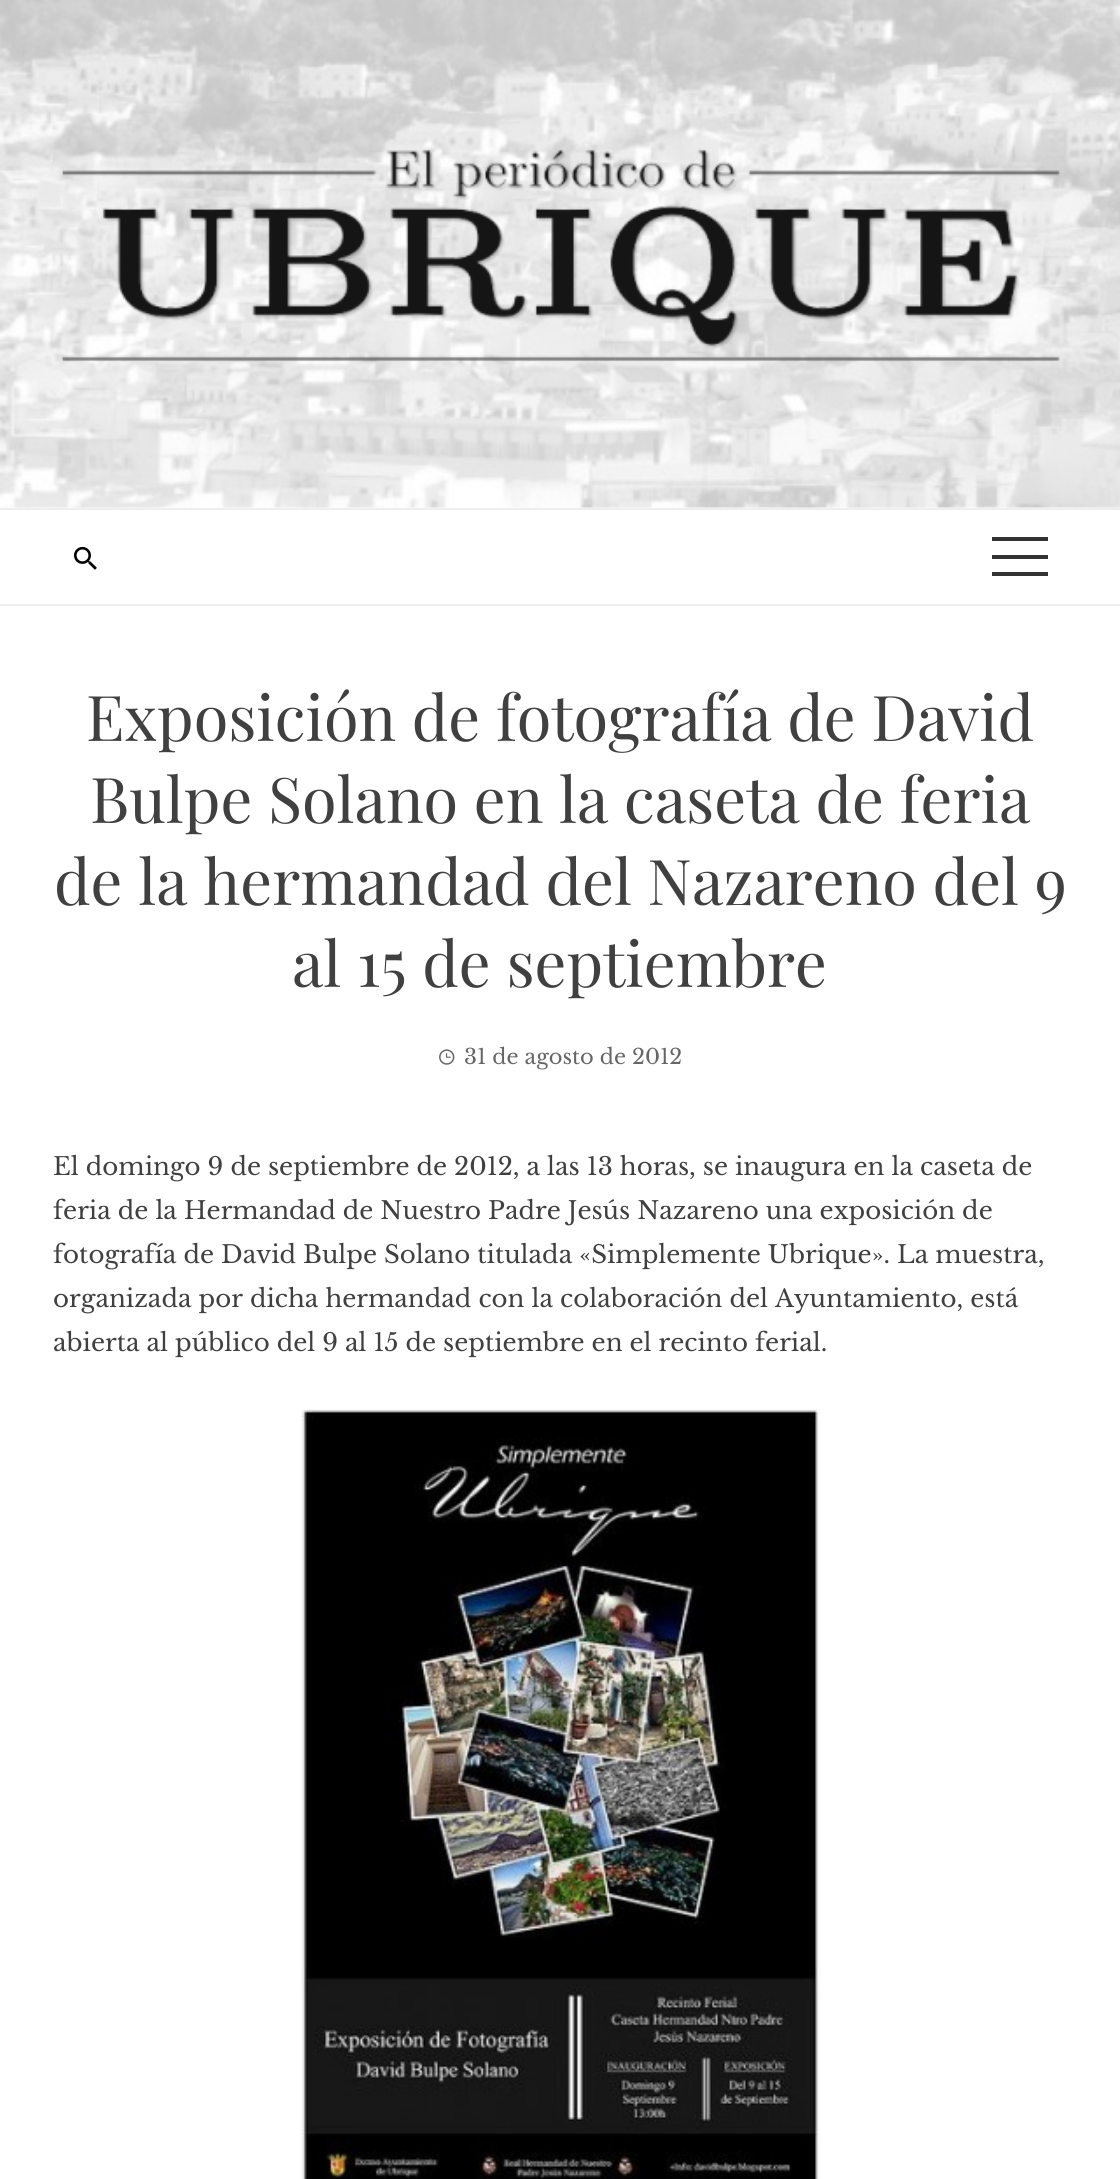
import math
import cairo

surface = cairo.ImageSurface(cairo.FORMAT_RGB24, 1120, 2179)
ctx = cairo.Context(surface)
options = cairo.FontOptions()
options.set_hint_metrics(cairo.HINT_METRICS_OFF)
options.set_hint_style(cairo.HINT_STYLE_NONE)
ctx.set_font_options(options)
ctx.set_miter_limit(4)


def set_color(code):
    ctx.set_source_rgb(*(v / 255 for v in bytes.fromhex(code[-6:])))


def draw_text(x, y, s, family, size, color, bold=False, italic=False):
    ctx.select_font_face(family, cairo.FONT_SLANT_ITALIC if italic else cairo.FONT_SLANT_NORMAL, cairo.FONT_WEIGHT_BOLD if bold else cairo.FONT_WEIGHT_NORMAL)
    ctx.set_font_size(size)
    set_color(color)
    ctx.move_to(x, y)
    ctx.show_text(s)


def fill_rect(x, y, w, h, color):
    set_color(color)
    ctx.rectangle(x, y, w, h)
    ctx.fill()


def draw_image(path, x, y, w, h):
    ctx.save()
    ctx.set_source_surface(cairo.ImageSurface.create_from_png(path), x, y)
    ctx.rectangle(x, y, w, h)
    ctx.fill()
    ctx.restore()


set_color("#ffffff")
ctx.paint()
draw_image("assets/img1.png", 0, 0, 1120, 508)
draw_image("assets/img2.png", 62, 149, 998, 213)
fill_rect(0, 508, 1120, 2, "#eeeeee")
fill_rect(0, 604, 1120, 2, "#eeeeee")
draw_image("assets/img3.png", 73, 546, 24, 24)
fill_rect(992, 537, 56, 4, "#333333")
fill_rect(992, 572, 56, 4, "#333333")
fill_rect(992, 555, 56, 4, "#333333")
draw_text(86, 741, "Exposición de fotografía de David", "Playfair Display", 63, "#404040")
draw_text(90, 823, "Bulpe Solano en la caseta de feria", "Playfair Display", 63, "#404040")
draw_text(54, 905, "de la hermandad del Nazareno del 9", "Playfair Display", 63, "#404040")
draw_text(292, 987, "al 15 de septiembre", "Playfair Display", 63, "#404040")
draw_image("assets/img4.png", 439, 1049, 16, 16)
draw_text(464, 1064, "31 de agosto de 2012", "Libre Baskerville", 21, "#666666")
draw_text(53, 1175, "El domingo 9 de septiembre de 2012, a las 13 horas, se inaugura en la caseta de", "Libre Baskerville", 24.5, "#404040")
draw_text(53, 1219, "feria de la Hermandad de Nuestro Padre Jesús Nazareno una exposición de", "Libre Baskerville", 24.5, "#404040")
draw_text(53, 1263, "fotografía de David Bulpe Solano titulada «Simplemente Ubrique». La muestra,", "Libre Baskerville", 24.5, "#404040")
draw_text(53, 1307, "organizada por dicha hermandad con la colaboración del Ayuntamiento, está", "Libre Baskerville", 24.5, "#404040")
draw_text(53, 1351, "abierta al público del 9 al 15 de septiembre en el recinto ferial.", "Libre Baskerville", 24.5, "#404040")
draw_image("assets/img5.png", 301, 1409, 520, 770)
surface.write_to_png("output.png")
